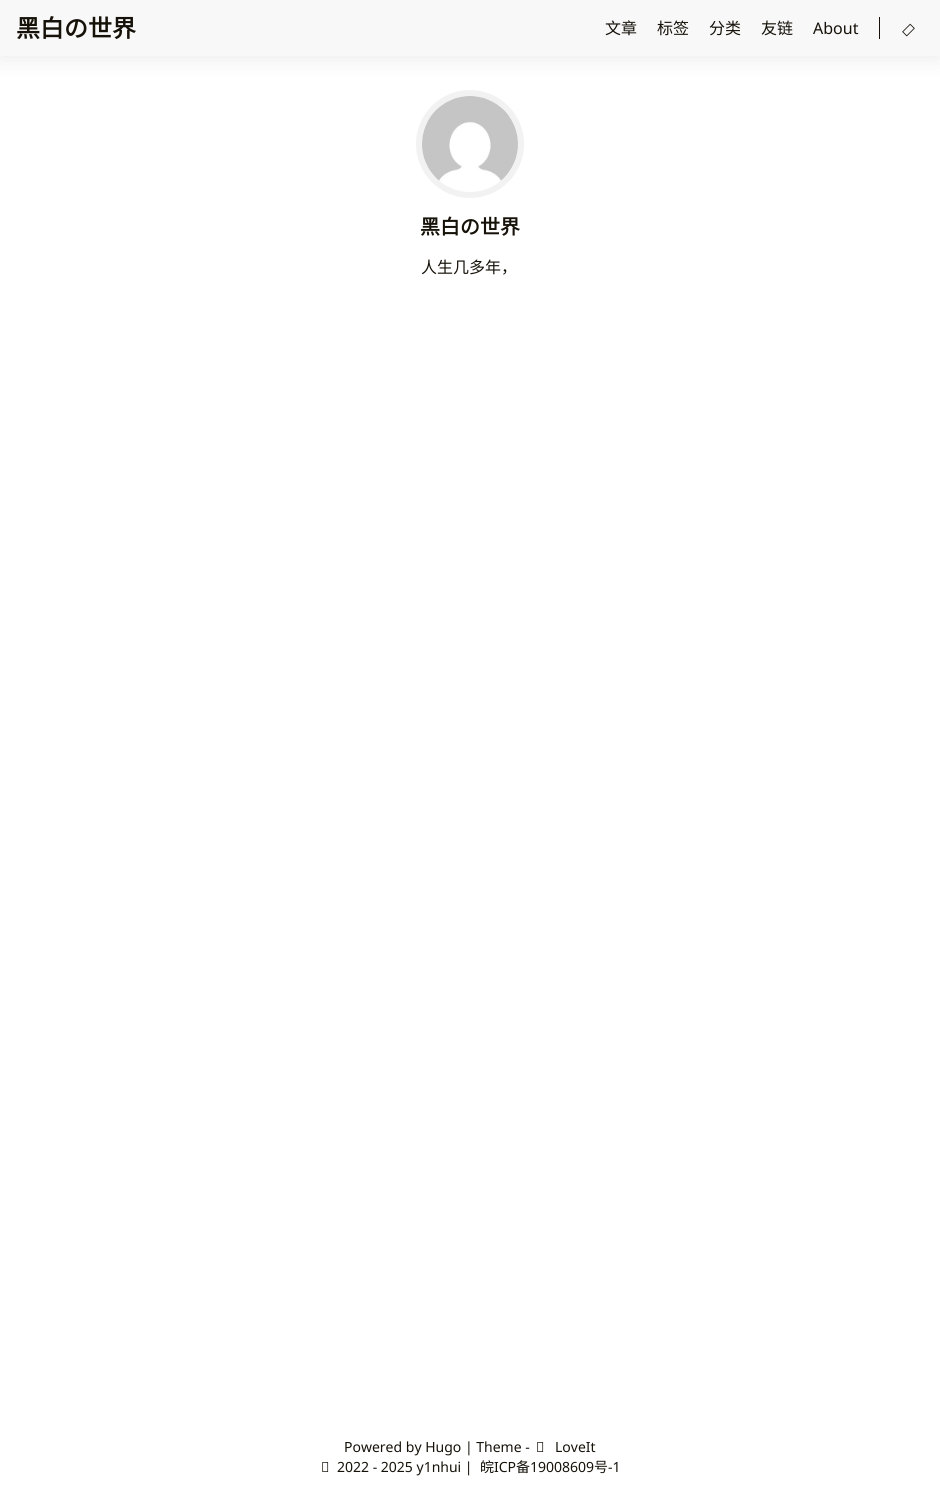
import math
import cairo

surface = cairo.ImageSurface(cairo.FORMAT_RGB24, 940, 1485)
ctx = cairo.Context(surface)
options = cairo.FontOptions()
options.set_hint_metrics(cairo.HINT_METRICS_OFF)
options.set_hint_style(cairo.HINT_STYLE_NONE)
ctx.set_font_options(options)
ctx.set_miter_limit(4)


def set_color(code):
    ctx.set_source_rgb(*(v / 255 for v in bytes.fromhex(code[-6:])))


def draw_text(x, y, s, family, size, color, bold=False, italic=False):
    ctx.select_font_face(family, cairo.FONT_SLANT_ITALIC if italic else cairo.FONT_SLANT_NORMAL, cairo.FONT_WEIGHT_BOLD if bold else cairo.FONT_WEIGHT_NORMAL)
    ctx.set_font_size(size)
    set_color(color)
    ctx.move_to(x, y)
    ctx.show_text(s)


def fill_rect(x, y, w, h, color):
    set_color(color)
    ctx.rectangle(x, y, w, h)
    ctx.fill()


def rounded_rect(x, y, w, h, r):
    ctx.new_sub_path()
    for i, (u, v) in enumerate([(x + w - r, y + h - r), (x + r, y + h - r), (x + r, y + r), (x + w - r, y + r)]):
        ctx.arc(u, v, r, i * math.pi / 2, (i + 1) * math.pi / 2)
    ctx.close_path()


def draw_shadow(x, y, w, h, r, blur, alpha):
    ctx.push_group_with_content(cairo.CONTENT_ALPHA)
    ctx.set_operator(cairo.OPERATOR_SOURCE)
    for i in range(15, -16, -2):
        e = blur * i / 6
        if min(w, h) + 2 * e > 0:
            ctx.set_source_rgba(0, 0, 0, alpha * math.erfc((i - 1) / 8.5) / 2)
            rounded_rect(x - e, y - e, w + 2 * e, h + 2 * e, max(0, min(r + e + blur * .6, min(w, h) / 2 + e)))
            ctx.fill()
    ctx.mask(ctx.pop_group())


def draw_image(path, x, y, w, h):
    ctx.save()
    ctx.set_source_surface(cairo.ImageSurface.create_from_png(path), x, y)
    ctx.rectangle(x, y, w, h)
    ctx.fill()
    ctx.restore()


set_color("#ffffff")
ctx.paint()
ctx.arc(470, 144, 51, 0, 2 * math.pi)
set_color("#f2f2f2")
ctx.set_line_width(6)
ctx.stroke()
set_color("#000000")
draw_shadow(0, 0, 940, 56, 0, 12, 0.1)
fill_rect(0, 0, 940, 56, "#f8f8f8")
draw_text(16, 37, "黑白の世界", "Noto Sans CJK SC", 24, "#161209", bold=True)
draw_text(605, 34, "文章", "Noto Sans CJK SC", 16, "#161209")
draw_text(657, 34, "标签", "Noto Sans CJK SC", 16, "#161209")
draw_text(709, 34, "分类", "Noto Sans CJK SC", 16, "#161209")
draw_text(761, 34, "友链", "Noto Sans CJK SC", 16, "#161209")
draw_text(813, 34, "About", "Noto Sans", 16, "#161209")
fill_rect(879, 17, 1, 22, "#161209")
draw_image("assets/img1.png", 902, 23, 13, 14)
draw_image("assets/img2.png", 422, 96, 96, 85)
draw_text(420, 234, "黑白の世界", "Noto Sans CJK SC", 20, "#161209", bold=True)
draw_text(421, 273, "人生几多年，", "Noto Sans CJK SC", 16, "#161209")
draw_text(344, 1452, "Powered by Hugo | Theme -", "Noto Sans", 14, "#161209")
draw_image("assets/img3.png", 537, 1442, 7, 10)
draw_text(555, 1452, "LoveIt", "Noto Sans", 14, "#161209")
draw_image("assets/img3.png", 322, 1462, 7, 10)
draw_text(337, 1472, "2022 - 2025 y1nhui |", "Noto Sans", 14, "#161209")
draw_text(480, 1472, "皖", "Noto Sans CJK SC", 14, "#161209")
draw_text(494, 1472, "ICP", "Noto Sans", 14, "#161209")
draw_text(516, 1472, "备", "Noto Sans CJK SC", 14, "#161209")
draw_text(530, 1472, "19008609", "Noto Sans", 14, "#161209")
draw_text(594, 1472, "号", "Noto Sans CJK SC", 14, "#161209")
draw_text(608, 1472, "-1", "Noto Sans", 14, "#161209")
surface.write_to_png("output.png")
